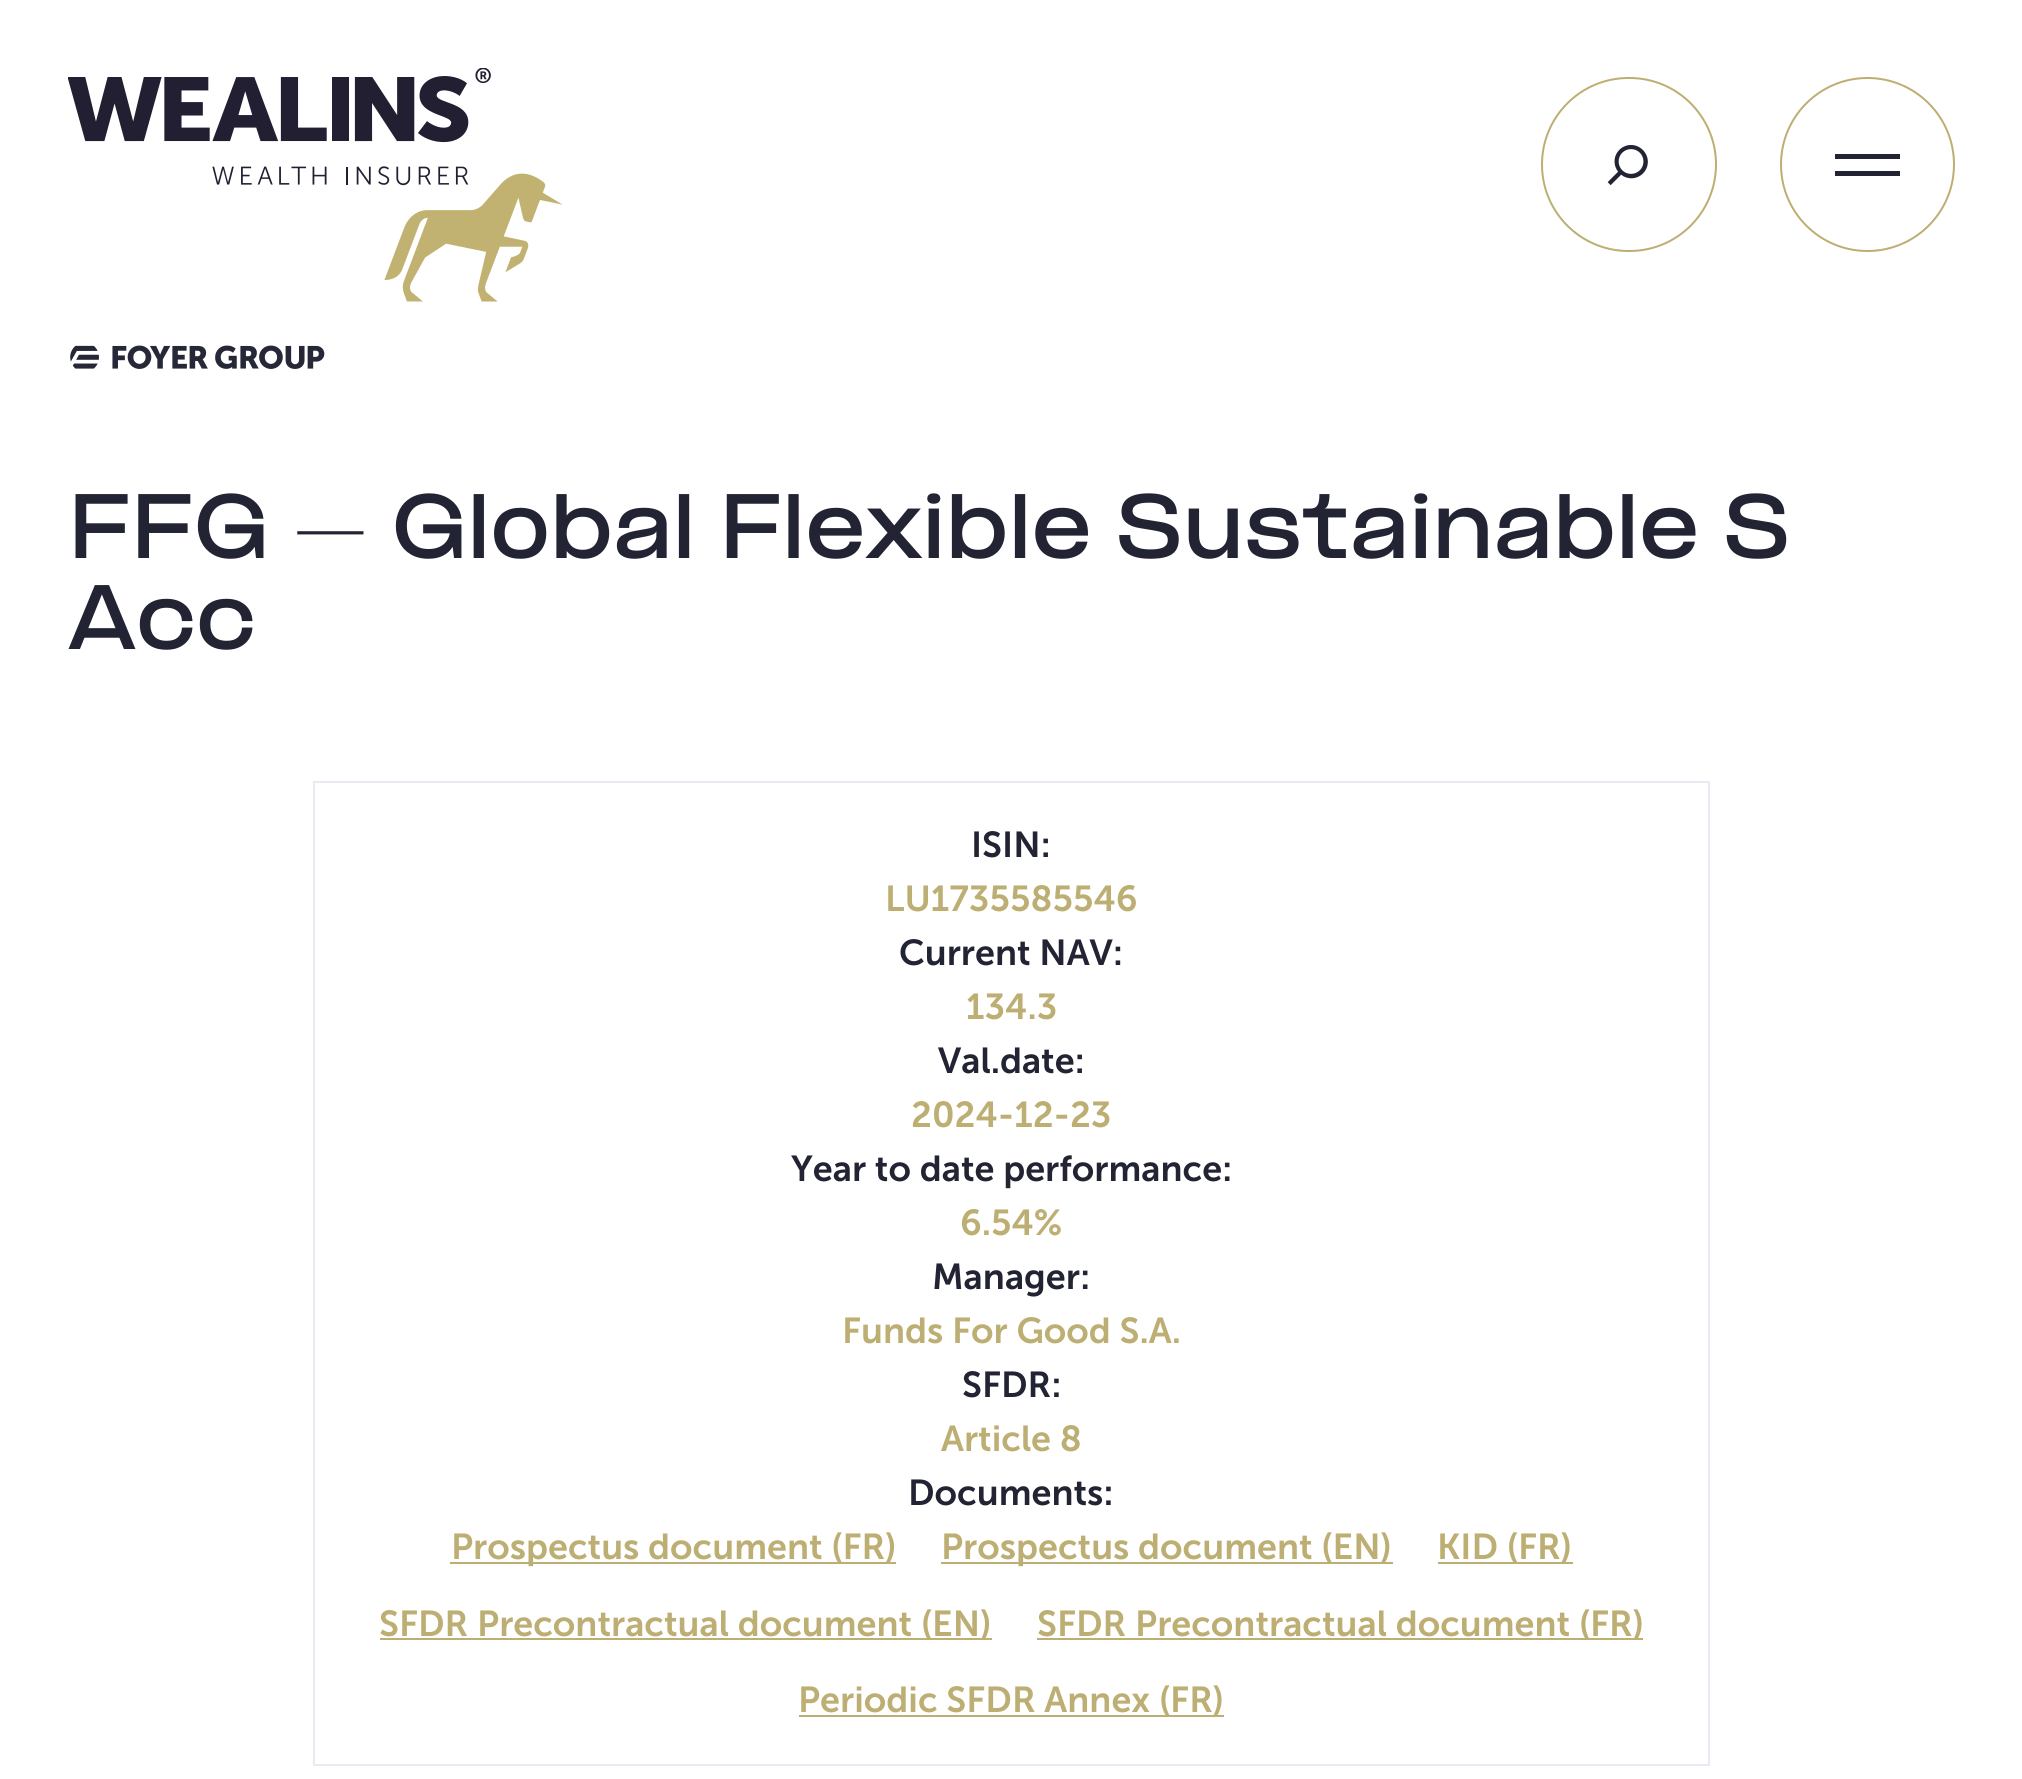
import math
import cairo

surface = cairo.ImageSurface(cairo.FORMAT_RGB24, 2022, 1779)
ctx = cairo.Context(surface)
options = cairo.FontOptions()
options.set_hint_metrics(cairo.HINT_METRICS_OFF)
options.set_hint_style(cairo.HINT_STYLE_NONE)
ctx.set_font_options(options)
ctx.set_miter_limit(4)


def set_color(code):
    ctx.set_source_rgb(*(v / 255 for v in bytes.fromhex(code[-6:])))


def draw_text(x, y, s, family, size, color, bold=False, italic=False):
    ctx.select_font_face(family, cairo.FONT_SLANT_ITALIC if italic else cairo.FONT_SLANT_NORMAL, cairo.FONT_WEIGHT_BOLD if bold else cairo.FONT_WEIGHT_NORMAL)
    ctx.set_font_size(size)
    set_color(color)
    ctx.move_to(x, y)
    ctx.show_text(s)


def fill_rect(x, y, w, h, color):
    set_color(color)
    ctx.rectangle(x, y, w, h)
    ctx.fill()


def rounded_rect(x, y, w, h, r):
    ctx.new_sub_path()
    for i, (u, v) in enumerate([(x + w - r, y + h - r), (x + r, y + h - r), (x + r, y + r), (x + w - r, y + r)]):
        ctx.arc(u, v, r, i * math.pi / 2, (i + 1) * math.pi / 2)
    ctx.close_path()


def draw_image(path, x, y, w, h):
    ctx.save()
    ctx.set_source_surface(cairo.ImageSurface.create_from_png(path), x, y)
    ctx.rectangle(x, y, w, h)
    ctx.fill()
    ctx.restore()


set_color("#ffffff")
ctx.paint()
draw_image("assets/img1.png", 68, 68, 495, 301)
rounded_rect(1542, 78, 174, 173, 86.5)
set_color("#bdae73")
ctx.stroke()
draw_image("assets/img2.png", 1607, 145, 41, 41)
ctx.arc(1867.5, 164.5, 86.5, 0, 2 * math.pi)
ctx.stroke()
fill_rect(1835, 154, 65, 5, "#222434")
fill_rect(1835, 171, 65, 5, "#222434")
draw_text(68, 558, "FFG – Global Flexible Sustainable S", "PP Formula", 76.1, "#222434", bold=True)
draw_text(68, 649, "Acc", "PP Formula", 76.1, "#222434", bold=True)
ctx.rectangle(314, 782, 1395, 983)
set_color("#eaeaf3")
ctx.stroke()
draw_text(971, 857, "ISIN:", "Museo Sans SemiBold", 36, "#222434")
draw_text(885, 911, "LU1735585546", "Museo Sans SemiBold", 36, "#bdae73")
draw_text(899, 965, "Current NAV:", "Museo Sans SemiBold", 36, "#222434")
draw_text(966, 1019, "134.3", "Museo Sans SemiBold", 36, "#bdae73")
draw_text(938, 1073, "Val.date:", "Museo Sans SemiBold", 36, "#222434")
draw_text(911, 1127, "2024-12-23", "Museo Sans SemiBold", 36, "#bdae73")
draw_text(791, 1181, "Year to date performance:", "Museo Sans SemiBold", 36, "#222434")
draw_text(960, 1235, "6.54%", "Museo Sans SemiBold", 36, "#bdae73")
draw_text(932, 1289, "Manager:", "Museo Sans SemiBold", 36, "#222434")
draw_text(842, 1343, "Funds For Good S.A.", "Museo Sans SemiBold", 36, "#bdae73")
draw_text(962, 1397, "SFDR:", "Museo Sans SemiBold", 36, "#222434")
draw_text(941, 1451, "Article 8", "Museo Sans SemiBold", 36, "#bdae73")
draw_text(908, 1505, "Documents:", "Museo Sans SemiBold", 36, "#222434")
fill_rect(450, 1562, 446, 2, "#bdae73")
draw_text(451, 1559, "Prospectus document (FR)", "Museo Sans SemiBold", 36, "#bdae73")
fill_rect(941, 1562, 452, 2, "#bdae73")
draw_text(941, 1559, "Prospectus document (EN)", "Museo Sans SemiBold", 36, "#bdae73")
fill_rect(1438, 1562, 135, 2, "#bdae73")
draw_text(1437, 1559, "KID (FR)", "Museo Sans SemiBold", 36, "#bdae73")
fill_rect(380, 1638, 612, 2, "#bdae73")
draw_text(379, 1636, "SFDR Precontractual document (EN)", "Museo Sans SemiBold", 36, "#bdae73")
fill_rect(1037, 1638, 606, 2, "#bdae73")
draw_text(1037, 1636, "SFDR Precontractual document (FR)", "Museo Sans SemiBold", 36, "#bdae73")
fill_rect(799, 1715, 425, 2, "#bdae73")
draw_text(798, 1712, "Periodic SFDR Annex (FR)", "Museo Sans SemiBold", 36, "#bdae73")
surface.write_to_png("output.png")
